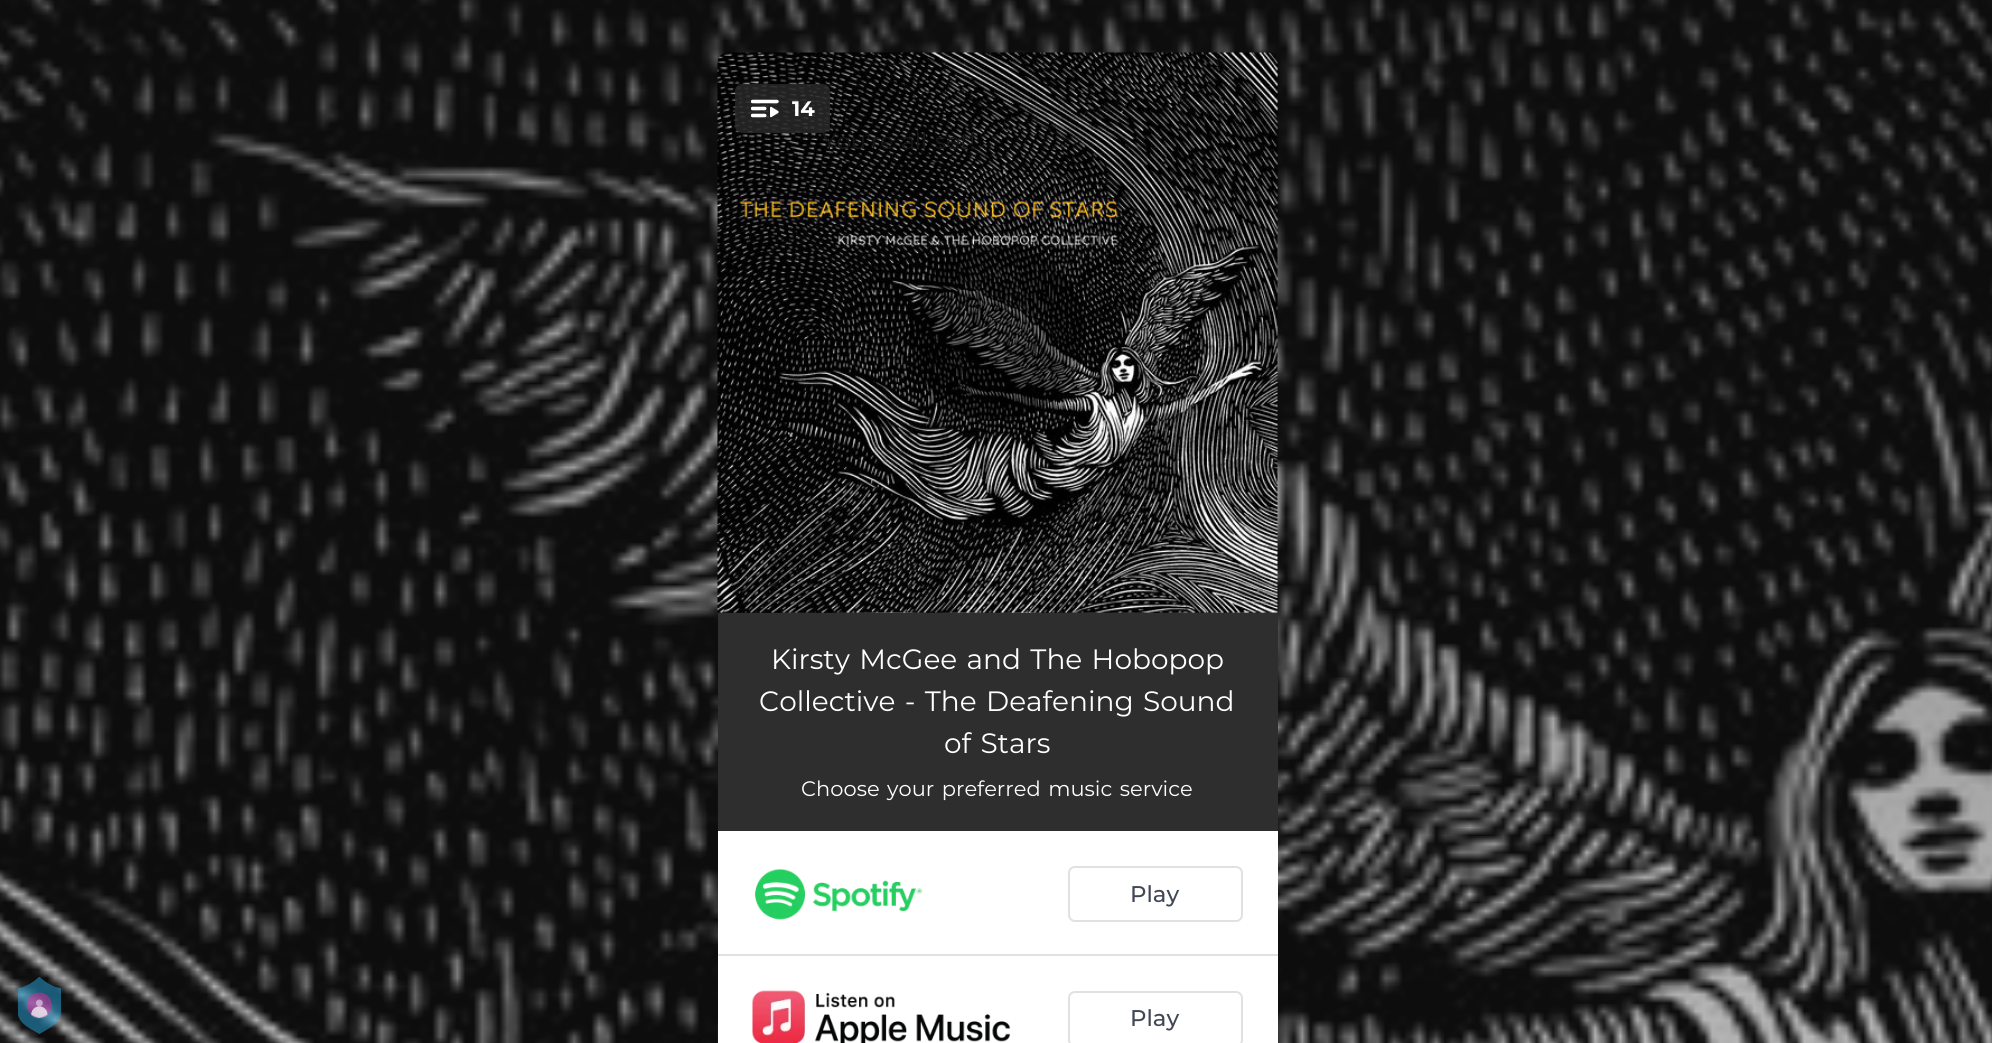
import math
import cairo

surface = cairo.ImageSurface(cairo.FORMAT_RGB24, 1992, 1043)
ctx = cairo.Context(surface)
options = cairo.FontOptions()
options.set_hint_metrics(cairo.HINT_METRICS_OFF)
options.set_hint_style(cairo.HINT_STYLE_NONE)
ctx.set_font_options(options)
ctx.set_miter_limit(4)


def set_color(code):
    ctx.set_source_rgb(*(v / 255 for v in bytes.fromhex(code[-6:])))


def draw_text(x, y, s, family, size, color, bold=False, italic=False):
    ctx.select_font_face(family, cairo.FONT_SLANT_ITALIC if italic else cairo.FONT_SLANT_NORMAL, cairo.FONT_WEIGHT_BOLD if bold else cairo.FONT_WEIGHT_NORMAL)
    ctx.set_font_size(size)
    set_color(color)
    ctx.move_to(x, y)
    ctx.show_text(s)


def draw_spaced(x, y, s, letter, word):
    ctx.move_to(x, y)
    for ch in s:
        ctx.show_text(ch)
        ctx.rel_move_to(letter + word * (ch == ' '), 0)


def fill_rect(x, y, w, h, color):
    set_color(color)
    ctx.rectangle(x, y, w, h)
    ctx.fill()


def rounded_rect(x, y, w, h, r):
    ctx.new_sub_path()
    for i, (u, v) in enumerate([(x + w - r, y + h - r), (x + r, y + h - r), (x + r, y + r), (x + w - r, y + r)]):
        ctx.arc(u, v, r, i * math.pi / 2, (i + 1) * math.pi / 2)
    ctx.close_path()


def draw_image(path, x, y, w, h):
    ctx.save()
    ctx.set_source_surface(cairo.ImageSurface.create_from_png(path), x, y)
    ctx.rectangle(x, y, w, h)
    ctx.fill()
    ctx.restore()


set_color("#ffffff")
ctx.paint()
draw_image("assets/img2.png", 0, 0, 1992, 1043)
draw_image("assets/img1.png", 18, 977, 43, 57)
draw_image("assets/img3.png", 717, 52, 561, 561)
ctx.select_font_face("Montserrat")
ctx.set_font_size(22.75)
set_color("#171717")
draw_spaced(822, 149, "You're all set!", 0, 2)
ctx.set_source_rgba(0.157, 0.157, 0.157, 0.85)
rounded_rect(735, 84, 95, 49, 7)
ctx.fill()
draw_image("assets/img4.png", 751, 99, 28, 19)
draw_text(792, 116, "14", "Montserrat", 21, "#ffffff", bold=True)
ctx.set_source_rgba(0, 0, 0, 0.45)
ctx.new_path()
ctx.arc(997.5, 332.5, 87.5, 0, 2 * math.pi)
ctx.fill()
fill_rect(718, 613, 560, 218, "#2e2e2e")
ctx.select_font_face("Montserrat")
ctx.set_font_size(28)
set_color("#ffffff")
draw_spaced(771, 669, "Kirsty McGee and The Hobopop", 0, 2)
draw_spaced(759, 711, "Collective - The Deafening Sound", 0, 2)
draw_spaced(944, 753, "of Stars", 0, 2)
ctx.set_font_size(21)
draw_spaced(801, 796, "Choose your preferred music service", 0, 2)
fill_rect(718, 831, 560, 212, "#ffffff")
fill_rect(718, 954, 560, 2, "#e1e1e4")
draw_image("assets/img5.png", 754, 868, 169, 52)
rounded_rect(1069, 867, 173, 54, 6)
ctx.stroke()
draw_text(1130, 902, "Play", "Montserrat Medium", 22.75, "#414754")
draw_image("assets/img6.png", 752, 990, 258, 53)
rounded_rect(1069, 992, 173, 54, 6)
set_color("#e1e1e4")
ctx.stroke()
draw_text(1130, 1026, "Play", "Montserrat Medium", 22.75, "#414754")
surface.write_to_png("output.png")
